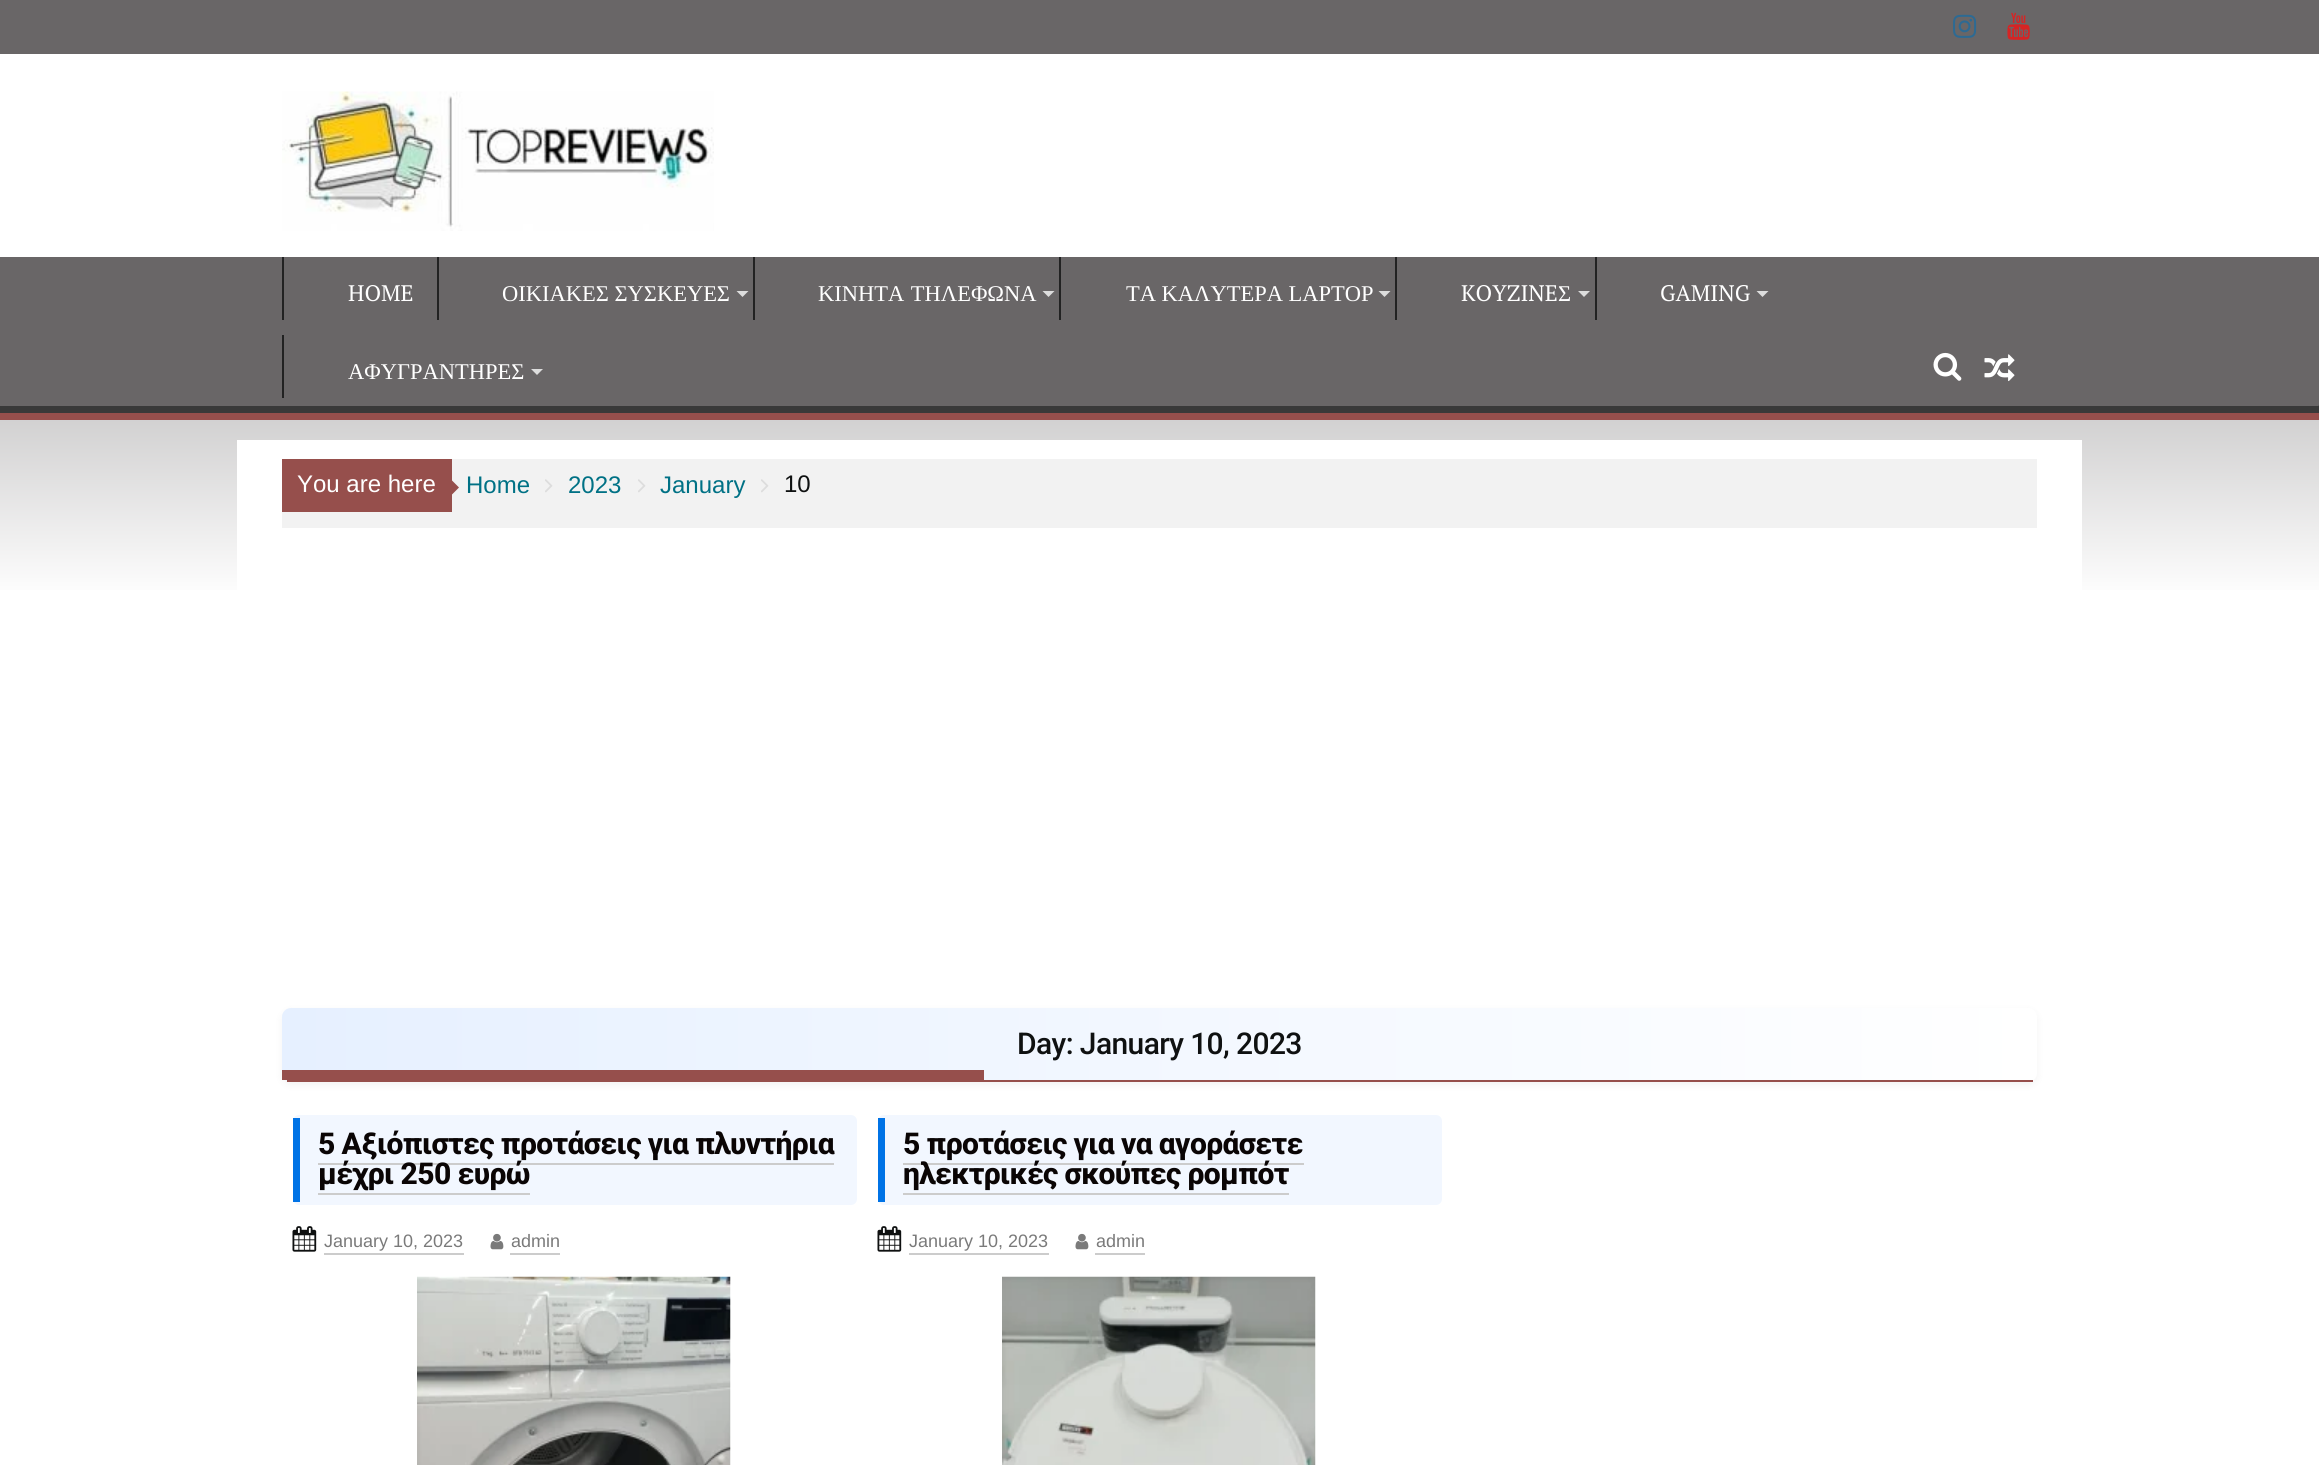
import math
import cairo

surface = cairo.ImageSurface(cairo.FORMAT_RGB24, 2319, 1465)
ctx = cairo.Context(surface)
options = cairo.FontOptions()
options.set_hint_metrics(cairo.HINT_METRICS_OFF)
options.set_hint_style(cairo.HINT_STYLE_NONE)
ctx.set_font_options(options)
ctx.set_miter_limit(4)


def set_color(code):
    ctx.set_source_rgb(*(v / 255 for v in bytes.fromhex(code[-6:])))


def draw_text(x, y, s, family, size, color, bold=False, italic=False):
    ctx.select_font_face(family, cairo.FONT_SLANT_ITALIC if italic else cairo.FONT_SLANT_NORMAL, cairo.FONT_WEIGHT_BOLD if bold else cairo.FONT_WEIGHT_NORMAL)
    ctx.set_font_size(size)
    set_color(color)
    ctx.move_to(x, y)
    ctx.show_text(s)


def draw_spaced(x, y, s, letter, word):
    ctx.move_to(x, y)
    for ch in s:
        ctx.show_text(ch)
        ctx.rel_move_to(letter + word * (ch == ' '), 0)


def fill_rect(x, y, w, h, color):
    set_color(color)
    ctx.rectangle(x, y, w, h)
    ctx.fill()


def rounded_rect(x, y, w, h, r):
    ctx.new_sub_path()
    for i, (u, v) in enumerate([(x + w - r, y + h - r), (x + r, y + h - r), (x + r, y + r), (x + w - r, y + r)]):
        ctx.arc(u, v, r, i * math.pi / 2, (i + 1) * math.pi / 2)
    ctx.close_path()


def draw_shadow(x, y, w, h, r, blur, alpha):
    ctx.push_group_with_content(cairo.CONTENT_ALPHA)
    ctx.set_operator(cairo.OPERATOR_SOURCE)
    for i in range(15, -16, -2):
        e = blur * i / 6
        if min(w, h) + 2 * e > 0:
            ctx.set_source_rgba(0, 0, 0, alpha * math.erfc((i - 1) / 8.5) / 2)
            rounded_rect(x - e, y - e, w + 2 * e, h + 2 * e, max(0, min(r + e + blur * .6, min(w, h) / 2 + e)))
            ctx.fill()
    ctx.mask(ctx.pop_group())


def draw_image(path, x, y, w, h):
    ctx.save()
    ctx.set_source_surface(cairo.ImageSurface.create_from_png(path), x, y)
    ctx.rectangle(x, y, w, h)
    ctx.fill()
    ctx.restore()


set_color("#ffffff")
ctx.paint()
fill_rect(0, 0, 2319, 54, "#696667")
draw_image("assets/img1.png", 1953, 14, 24, 24)
draw_image("assets/img2.png", 2007, 12, 23, 28)
draw_image("assets/img3.png", 282, 91, 432, 140)
fill_rect(0, 257, 2319, 149, "#696667")
ctx.save()
ctx.rectangle(0, 257, 2319, 156)
ctx.clip()
set_color("#393939")
ctx.set_fill_rule(cairo.FILL_RULE_EVEN_ODD)
ctx.new_path()
ctx.move_to(-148, 108)
ctx.line_to(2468, 108)
ctx.line_to(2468, 561)
ctx.line_to(-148, 561)
ctx.close_path()
ctx.move_to(-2, 248)
ctx.line_to(2318, 248)
ctx.curve_to(2318, 248, 2319, 248, 2319, 249)
ctx.line_to(2319, 405)
ctx.curve_to(2319, 406, 2318, 406, 2318, 406)
ctx.line_to(-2, 406)
ctx.curve_to(-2, 406, -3, 406, -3, 405)
ctx.line_to(-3, 249)
ctx.curve_to(-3, 248, -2, 248, -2, 248)
ctx.close_path()
ctx.fill()
ctx.restore()
fill_rect(0, 413, 2319, 7, "#964f4c")
fill_rect(282, 257, 2, 63, "#222222")
draw_text(348, 301, "HOME", "PT Serif", 22.5, "#ffffff")
fill_rect(437, 257, 2, 63, "#222222")
draw_text(502, 301, "ΟΙΚΙΑΚΕΣ ΣΥΣΚΕΥΕΣ", "Liberation Serif", 22.5, "#ffffff")
set_color("#dddddd")
ctx.new_path()
ctx.move_to(736.5, 291)
ctx.line_to(748.5, 291)
ctx.line_to(742.5, 297)
ctx.close_path()
ctx.fill()
fill_rect(753, 257, 2, 63, "#222222")
set_color("#ffffff")
draw_spaced(818, 301, "ΚΙΝΗΤΑ ΤΗΛΕΦΩΝΑ", 0, 1)
set_color("#dddddd")
ctx.new_path()
ctx.move_to(1042.5, 291)
ctx.line_to(1054.5, 291)
ctx.line_to(1048.5, 297)
ctx.close_path()
ctx.fill()
fill_rect(1059, 257, 2, 63, "#222222")
draw_text(1126, 301, "ΤΑ ΚΑΛΥΤΕΡΑ LAPTOP", "Liberation Serif", 22.5, "#ffffff")
set_color("#dddddd")
ctx.new_path()
ctx.move_to(1378.5, 291)
ctx.line_to(1390.5, 291)
ctx.line_to(1384.5, 297)
ctx.close_path()
ctx.fill()
fill_rect(1395, 257, 2, 63, "#222222")
draw_text(1461, 301, "KOYZINE", "PT Serif", 22.5, "#ffffff")
draw_text(1558, 301, "Σ", "Liberation Serif", 22.5, "#ffffff")
set_color("#dddddd")
ctx.new_path()
ctx.move_to(1578, 291)
ctx.line_to(1590, 291)
ctx.line_to(1584, 297)
ctx.close_path()
ctx.fill()
fill_rect(1595, 257, 2, 63, "#222222")
draw_text(1660, 301, "GAMING", "PT Serif", 22.5, "#ffffff")
set_color("#dddddd")
ctx.new_path()
ctx.move_to(1756.5, 291)
ctx.line_to(1768.5, 291)
ctx.line_to(1762.5, 297)
ctx.close_path()
ctx.fill()
fill_rect(282, 335, 2, 63, "#222222")
draw_text(348, 379, "ΑΦΥΓΡΑΝΤΗΡΕΣ", "Liberation Serif", 22.5, "#ffffff")
set_color("#dddddd")
ctx.new_path()
ctx.move_to(531, 369)
ctx.line_to(543, 369)
ctx.line_to(537, 375)
ctx.close_path()
ctx.fill()
draw_image("assets/img4.png", 1933, 352, 29, 29)
draw_image("assets/img5.png", 1984, 354, 31, 28)
gradient = cairo.LinearGradient(1160, 0, 1160, 600)
gradient.add_color_stop_rgba(0, 0.412, 0.4, 0.404, 1)
gradient.add_color_stop_rgba(1, 1, 1, 1, 1)
ctx.set_source(gradient)
ctx.rectangle(0, 420, 2319, 170)
ctx.fill()
fill_rect(237, 440, 1845, 150, "#ffffff")
fill_rect(282, 459, 1755, 69, "#f2f2f2")
fill_rect(282, 459, 170, 53, "#964f4c")
draw_text(297, 492, "You are here", "Liberation Sans", 24, "#ffffff")
set_color("#964f4c")
ctx.new_path()
ctx.move_to(451.5, 495)
ctx.line_to(451.5, 480)
ctx.line_to(459, 487.5)
ctx.close_path()
ctx.fill()
draw_text(466, 493, "Home", "Liberation Sans", 24, "#007185")
draw_image("assets/img6.png", 545, 479, 8, 14)
draw_text(568, 493, "2023", "Liberation Sans", 24, "#007185")
draw_image("assets/img6.png", 638, 479, 8, 14)
draw_text(660, 493, "January", "Liberation Sans", 24, "#007185")
draw_image("assets/img6.png", 761, 479, 8, 14)
draw_text(784, 492, "10", "Liberation Sans", 24, "#0f1111")
set_color("#000000")
draw_shadow(282, 1011, 1755, 74, 9, 4, 0.05)
gradient = cairo.LinearGradient(282, 1044, 2037, 1044)
gradient.add_color_stop_rgba(0, 0.902, 0.941, 1, 1)
gradient.add_color_stop_rgba(1, 1, 1, 1, 1)
ctx.set_source(gradient)
rounded_rect(282, 1008, 1755, 74, 9)
ctx.fill()
fill_rect(287, 1080, 1746, 2, "#964f4c")
ctx.select_font_face("Roboto Medium")
ctx.set_font_size(30)
set_color("#0f1111")
draw_spaced(1017, 1054, "Day: January 10, 2023", -0.6, 0)
fill_rect(282, 1070, 702, 10, "#964f4c")
set_color("#f2f7ff")
rounded_rect(293, 1115, 564, 90, 6)
ctx.fill()
fill_rect(293, 1118, 7, 84, "#0073e6")
ctx.select_font_face("Roboto ExtraBold")
set_color("#0a0505")
draw_spaced(318, 1154, "5 Αξιόπιστες προτάσεις για πλυντήρια", -0.6, 0)
fill_rect(318, 1163, 516, 2, "#cccccc")
set_color("#0a0505")
draw_spaced(318, 1184, "μέχρι 250 ευρώ", -0.6, 0)
fill_rect(318, 1193, 212, 2, "#cccccc")
draw_image("assets/img7.png", 292, 1226, 25, 26)
draw_text(324, 1247, "January 10, 2023", "Liberation Sans", 18, "#7a7a7a")
fill_rect(324, 1253, 140, 2, "#cccccc")
draw_image("assets/img8.png", 490, 1233, 14, 17)
draw_text(511, 1247, "admin", "Liberation Sans", 18, "#7a7a7a")
fill_rect(510, 1253, 50, 2, "#cccccc")
draw_image("assets/img9.png", 417, 1276, 314, 189)
set_color("#f2f7ff")
rounded_rect(878, 1115, 564, 90, 6)
ctx.fill()
fill_rect(878, 1118, 7, 84, "#0073e6")
ctx.select_font_face("Roboto ExtraBold")
ctx.set_font_size(30)
set_color("#0a0505")
draw_spaced(903, 1154, "5 προτάσεις για να αγοράσετε", -0.6, 0)
fill_rect(903, 1163, 401, 2, "#cccccc")
set_color("#0a0505")
draw_spaced(903, 1184, "ηλεκτρικές σκούπες ρομπότ", -0.6, 0)
fill_rect(903, 1193, 386, 2, "#cccccc")
draw_image("assets/img7.png", 877, 1226, 25, 26)
draw_text(909, 1247, "January 10, 2023", "Liberation Sans", 18, "#7a7a7a")
fill_rect(909, 1253, 140, 2, "#cccccc")
draw_image("assets/img8.png", 1075, 1233, 14, 17)
draw_text(1096, 1247, "admin", "Liberation Sans", 18, "#7a7a7a")
fill_rect(1095, 1253, 50, 2, "#cccccc")
draw_image("assets/img10.png", 1002, 1276, 314, 189)
surface.write_to_png("output.png")
